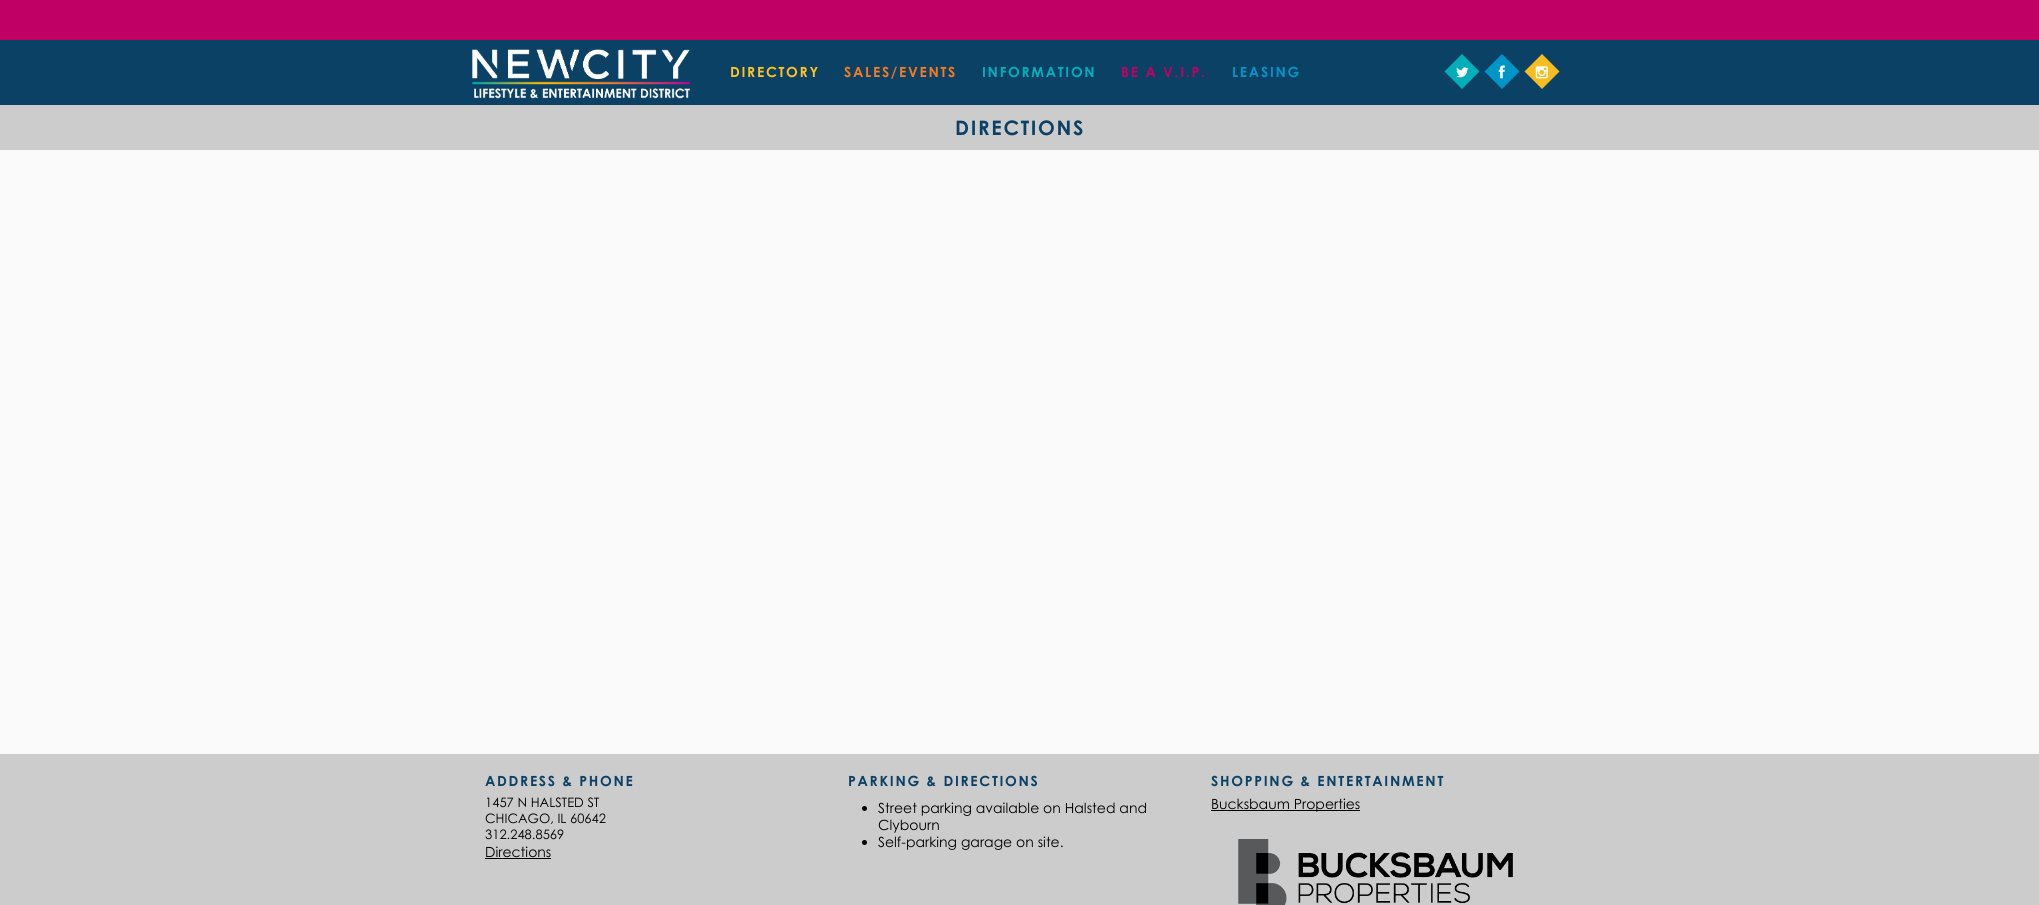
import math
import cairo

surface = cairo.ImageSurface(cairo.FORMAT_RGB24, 2039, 905)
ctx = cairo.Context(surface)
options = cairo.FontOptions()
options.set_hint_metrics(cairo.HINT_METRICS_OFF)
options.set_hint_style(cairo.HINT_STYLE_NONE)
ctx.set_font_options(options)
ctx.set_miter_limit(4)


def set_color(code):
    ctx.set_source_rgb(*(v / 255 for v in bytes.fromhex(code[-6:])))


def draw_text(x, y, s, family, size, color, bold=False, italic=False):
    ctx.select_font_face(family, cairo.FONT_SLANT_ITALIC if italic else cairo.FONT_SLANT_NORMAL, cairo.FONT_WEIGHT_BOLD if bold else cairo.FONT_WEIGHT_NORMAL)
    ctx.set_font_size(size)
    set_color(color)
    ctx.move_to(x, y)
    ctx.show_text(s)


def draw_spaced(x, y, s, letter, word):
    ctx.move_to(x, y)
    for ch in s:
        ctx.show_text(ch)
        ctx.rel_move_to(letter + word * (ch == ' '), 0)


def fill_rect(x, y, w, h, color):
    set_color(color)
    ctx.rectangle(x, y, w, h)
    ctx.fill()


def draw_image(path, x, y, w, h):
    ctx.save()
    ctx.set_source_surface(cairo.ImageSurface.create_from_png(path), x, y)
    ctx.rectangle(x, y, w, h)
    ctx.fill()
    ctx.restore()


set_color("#0c4166")
ctx.paint()
fill_rect(0, 0, 2039, 40, "#c00065")
draw_image("assets/img1.png", 472, 49, 218, 50)
ctx.select_font_face("Century Gothic", cairo.FONT_SLANT_NORMAL, cairo.FONT_WEIGHT_BOLD)
ctx.set_font_size(14)
set_color("#ffc222")
draw_spaced(730, 77, "DIRECTORY", 1.7, 0)
set_color("#f47b20")
draw_spaced(844, 77, "SALES/EVENTS", 1.7, 0)
set_color("#00afba")
draw_spaced(982, 77, "INFORMATION", 1.7, 0)
set_color("#c00065")
draw_spaced(1121, 77, "BE A V.I.P.", 1.7, 0)
set_color("#0095c7")
draw_spaced(1232, 77, "LEASING", 1.7, 0)
set_color("#00afba")
ctx.new_path()
ctx.move_to(1462, 54)
ctx.line_to(1479.5, 71.5)
ctx.line_to(1462, 89)
ctx.line_to(1444.5, 71.5)
ctx.close_path()
ctx.fill()
draw_image("assets/img2.png", 1456, 67, 13, 11)
set_color("#0095c7")
ctx.new_path()
ctx.move_to(1502, 54)
ctx.line_to(1519.5, 71.5)
ctx.line_to(1502, 89)
ctx.line_to(1484.5, 71.5)
ctx.close_path()
ctx.fill()
draw_image("assets/img3.png", 1498, 65, 7, 14)
set_color("#f6bd20")
ctx.new_path()
ctx.move_to(1542, 54)
ctx.line_to(1559.5, 71.5)
ctx.line_to(1542, 89)
ctx.line_to(1524.5, 71.5)
ctx.close_path()
ctx.fill()
draw_image("assets/img4.png", 1535, 66, 13, 13)
fill_rect(0, 105, 2039, 45, "#cccccc")
ctx.set_font_size(20)
set_color("#0c4166")
draw_spaced(955, 135, "DIRECTIONS", 1.7, 0)
fill_rect(0, 150, 2039, 604, "#fafafa")
fill_rect(0, 754, 2039, 151, "#cccccc")
ctx.set_font_size(14)
set_color("#0c4166")
draw_spaced(485, 786, "ADDRESS & PHONE", 1.7, 0)
draw_text(485, 807, "1457 N HALSTED ST", "Century Gothic", 13, "#000000")
draw_text(485, 823, "CHICAGO, IL 60642", "Century Gothic", 13, "#000000")
draw_text(485, 839, "312.248.8569", "Century Gothic", 13, "#000000")
draw_text(485, 857, "Directions", "Century Gothic", 14, "#000000")
fill_rect(485, 858, 66, 1, "#000000")
ctx.select_font_face("Century Gothic", cairo.FONT_SLANT_NORMAL, cairo.FONT_WEIGHT_BOLD)
set_color("#0c4166")
draw_spaced(848, 786, "PARKING & DIRECTIONS", 1.7, 0)
set_color("#000000")
ctx.new_path()
ctx.arc(864.5, 808.5, 2.5, 0, 2 * math.pi)
ctx.fill()
draw_text(878, 813, "Street parking available on Halsted and", "Century Gothic", 14, "#000000")
draw_text(878, 830, "Clybourn", "Century Gothic", 14, "#000000")
ctx.new_path()
ctx.arc(864.5, 842.5, 2.5, 0, 2 * math.pi)
ctx.fill()
draw_text(878, 847, "Self-parking garage on site.", "Century Gothic", 14, "#000000")
ctx.select_font_face("Century Gothic", cairo.FONT_SLANT_NORMAL, cairo.FONT_WEIGHT_BOLD)
set_color("#0c4166")
draw_spaced(1211, 786, "SHOPPING & ENTERTAINMENT", 1.7, 0)
fill_rect(1211, 810, 149, 1, "#000000")
draw_text(1211, 809, "Bucksbaum Properties", "Century Gothic", 14, "#000000")
draw_image("assets/img5.png", 1238, 839, 275, 66)
surface.write_to_png("output.png")
